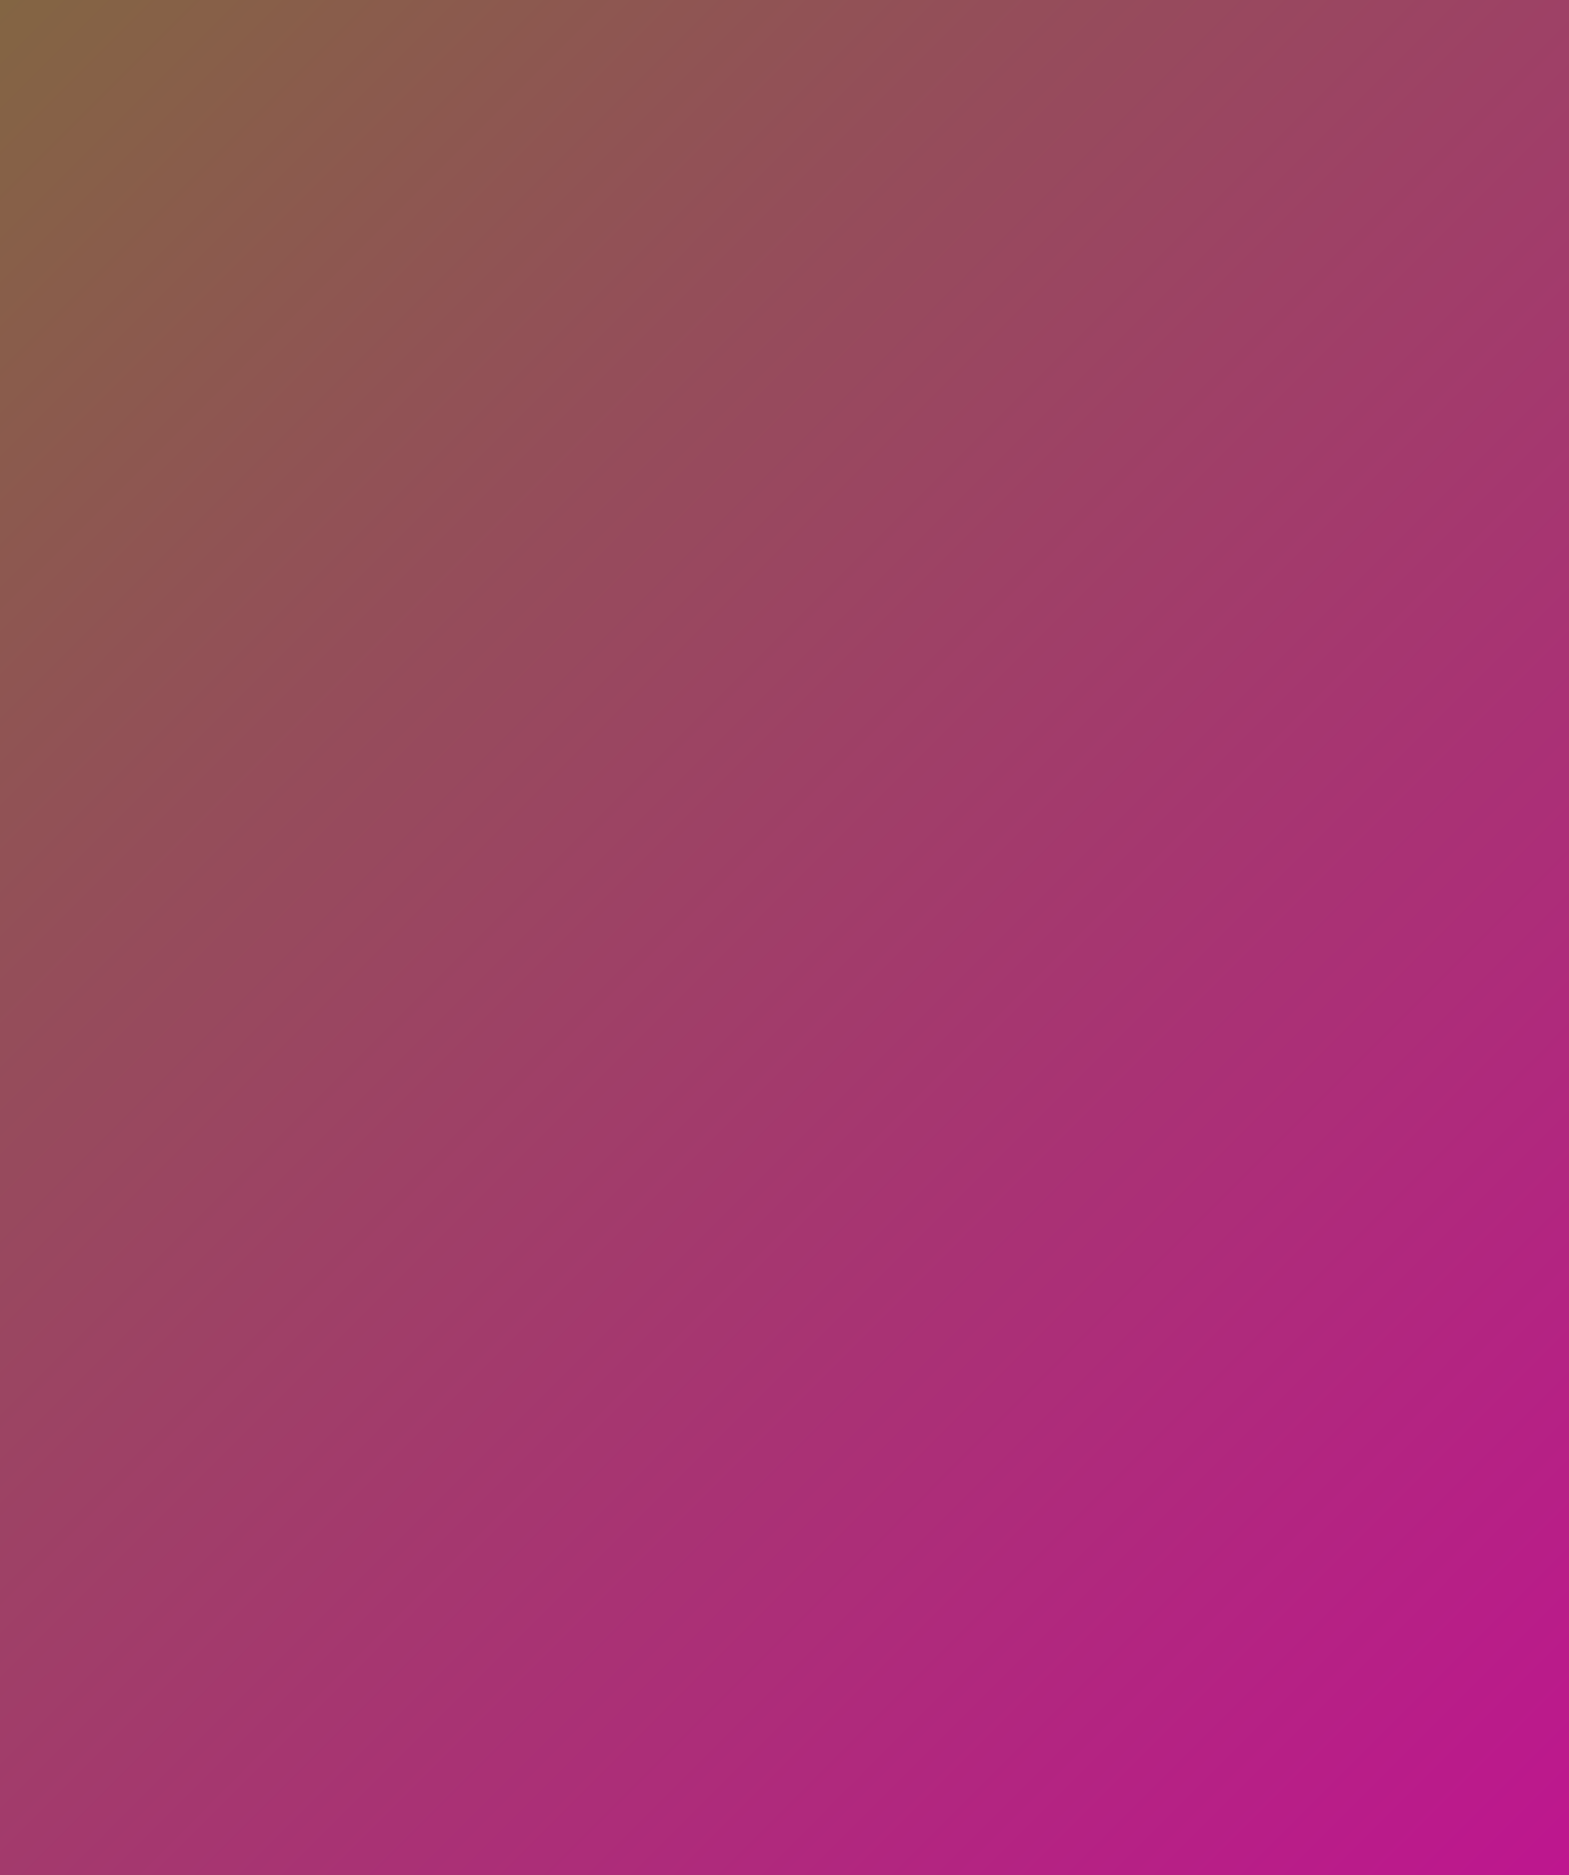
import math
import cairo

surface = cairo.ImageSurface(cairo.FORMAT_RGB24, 1569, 1875)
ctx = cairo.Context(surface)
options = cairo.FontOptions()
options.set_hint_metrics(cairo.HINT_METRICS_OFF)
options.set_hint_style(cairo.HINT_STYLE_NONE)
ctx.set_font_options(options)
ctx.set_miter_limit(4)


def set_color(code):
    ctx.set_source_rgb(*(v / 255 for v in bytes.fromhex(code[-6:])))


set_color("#ffffff")
ctx.paint()
gradient = cairo.LinearGradient(-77, 77, 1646, 1799)
gradient.add_color_stop_rgba(0, 0.514, 0.396, 0.263, 1)
gradient.add_color_stop_rgba(1, 0.745, 0.086, 0.561, 1)
ctx.set_source(gradient)
ctx.rectangle(0, 0, 1569, 1875)
ctx.fill()
surface.write_to_png("output.png")
